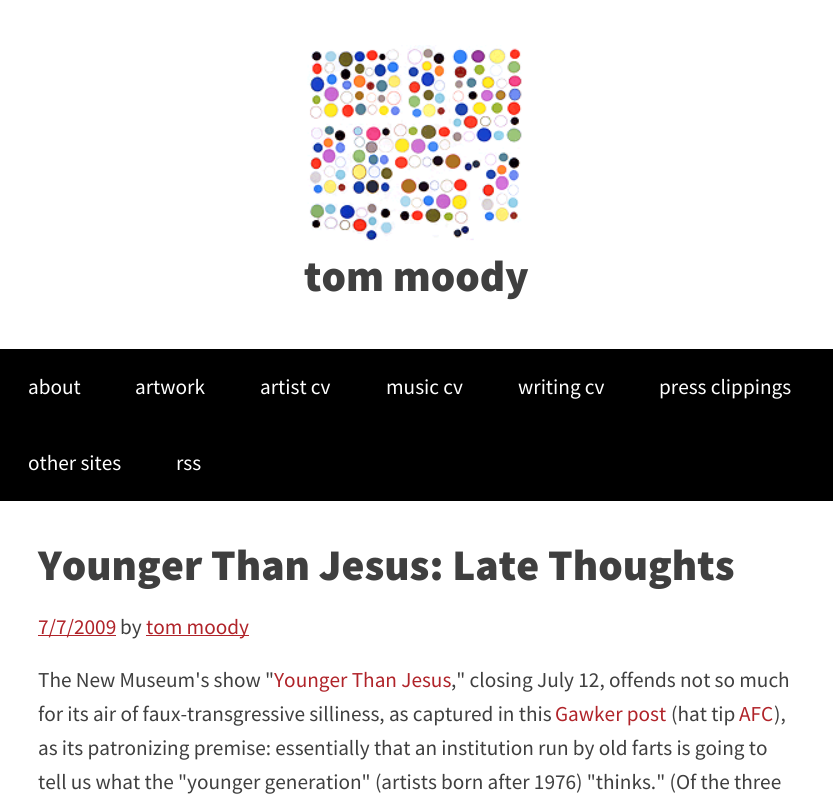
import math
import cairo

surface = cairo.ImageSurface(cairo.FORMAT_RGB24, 833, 794)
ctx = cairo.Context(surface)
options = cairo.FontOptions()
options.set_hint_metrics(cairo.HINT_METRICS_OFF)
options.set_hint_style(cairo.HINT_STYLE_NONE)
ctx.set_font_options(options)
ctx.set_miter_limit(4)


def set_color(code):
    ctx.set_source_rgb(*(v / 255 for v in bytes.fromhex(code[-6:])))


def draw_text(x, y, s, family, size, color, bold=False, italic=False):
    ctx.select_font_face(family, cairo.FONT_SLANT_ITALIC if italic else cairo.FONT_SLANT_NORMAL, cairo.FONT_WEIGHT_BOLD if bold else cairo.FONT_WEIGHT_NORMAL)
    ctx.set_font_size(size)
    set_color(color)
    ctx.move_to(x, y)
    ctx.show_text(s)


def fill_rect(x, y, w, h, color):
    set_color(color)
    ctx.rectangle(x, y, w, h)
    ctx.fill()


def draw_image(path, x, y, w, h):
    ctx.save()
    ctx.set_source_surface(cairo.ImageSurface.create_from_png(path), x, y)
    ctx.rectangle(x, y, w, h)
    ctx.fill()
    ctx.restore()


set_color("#ffffff")
ctx.paint()
draw_image("assets/img1.png", 307, 45, 215, 196)
draw_text(304, 291, "tom moody", "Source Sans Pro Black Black", 43.75, "#3f3f3f")
fill_rect(0, 349, 833, 152, "#000000")
draw_text(28, 394, "about", "Source Sans Pro", 21.25, "#ffffff")
draw_text(135, 394, "artwork", "Source Sans Pro", 21.25, "#ffffff")
draw_text(260, 394, "artist cv", "Source Sans Pro", 21.25, "#ffffff")
draw_text(386, 394, "music cv", "Source Sans Pro", 21.25, "#ffffff")
draw_text(518, 394, "writing cv", "Source Sans Pro", 21.25, "#ffffff")
draw_text(659, 394, "press clippings", "Source Sans Pro", 21.25, "#ffffff")
draw_text(28, 470, "other sites", "Source Sans Pro", 21.25, "#ffffff")
draw_text(176, 470, "rss", "Source Sans Pro", 21.25, "#ffffff")
draw_text(38, 580, "Younger Than Jesus: Late Thoughts", "Source Sans Pro Black Black", 43.75, "#3f3f3f")
fill_rect(38, 635, 78, 1, "#b02329")
draw_text(38, 634, "7/7/2009", "Source Sans Pro", 21.25, "#b02329")
draw_text(120, 634, "by", "Source Sans Pro", 21.25, "#3f3f3f")
fill_rect(146, 635, 103, 1, "#b02329")
draw_text(146, 634, "tom moody", "Source Sans Pro", 21.25, "#b02329")
draw_text(38, 687, "The New Museum's show \"", "Source Sans Pro", 21.25, "#3f3f3f")
draw_text(274, 687, "Younger Than Jesus", "Source Sans Pro", 21.25, "#b02329")
draw_text(451, 687, ",\" closing July 12, offends not so much", "Source Sans Pro", 21.25, "#3f3f3f")
draw_text(38, 721, "for its air of faux-transgressive silliness, as captured in this", "Source Sans Pro", 21.25, "#3f3f3f")
draw_text(555, 721, "Gawker post", "Source Sans Pro", 21.25, "#b02329")
draw_text(671, 721, "(hat tip", "Source Sans Pro", 21.25, "#3f3f3f")
draw_text(739, 721, "AFC", "Source Sans Pro", 21.25, "#b02329")
draw_text(774, 721, "),", "Source Sans Pro", 21.25, "#3f3f3f")
draw_text(38, 755, "as its patronizing premise: essentially that an institution run by old farts is going to", "Source Sans Pro", 21.25, "#3f3f3f")
draw_text(38, 789, "tell us what the \"younger generation\" (artists born after 1976) \"thinks.\" (Of the three", "Source Sans Pro", 21.25, "#3f3f3f")
surface.write_to_png("output.png")
